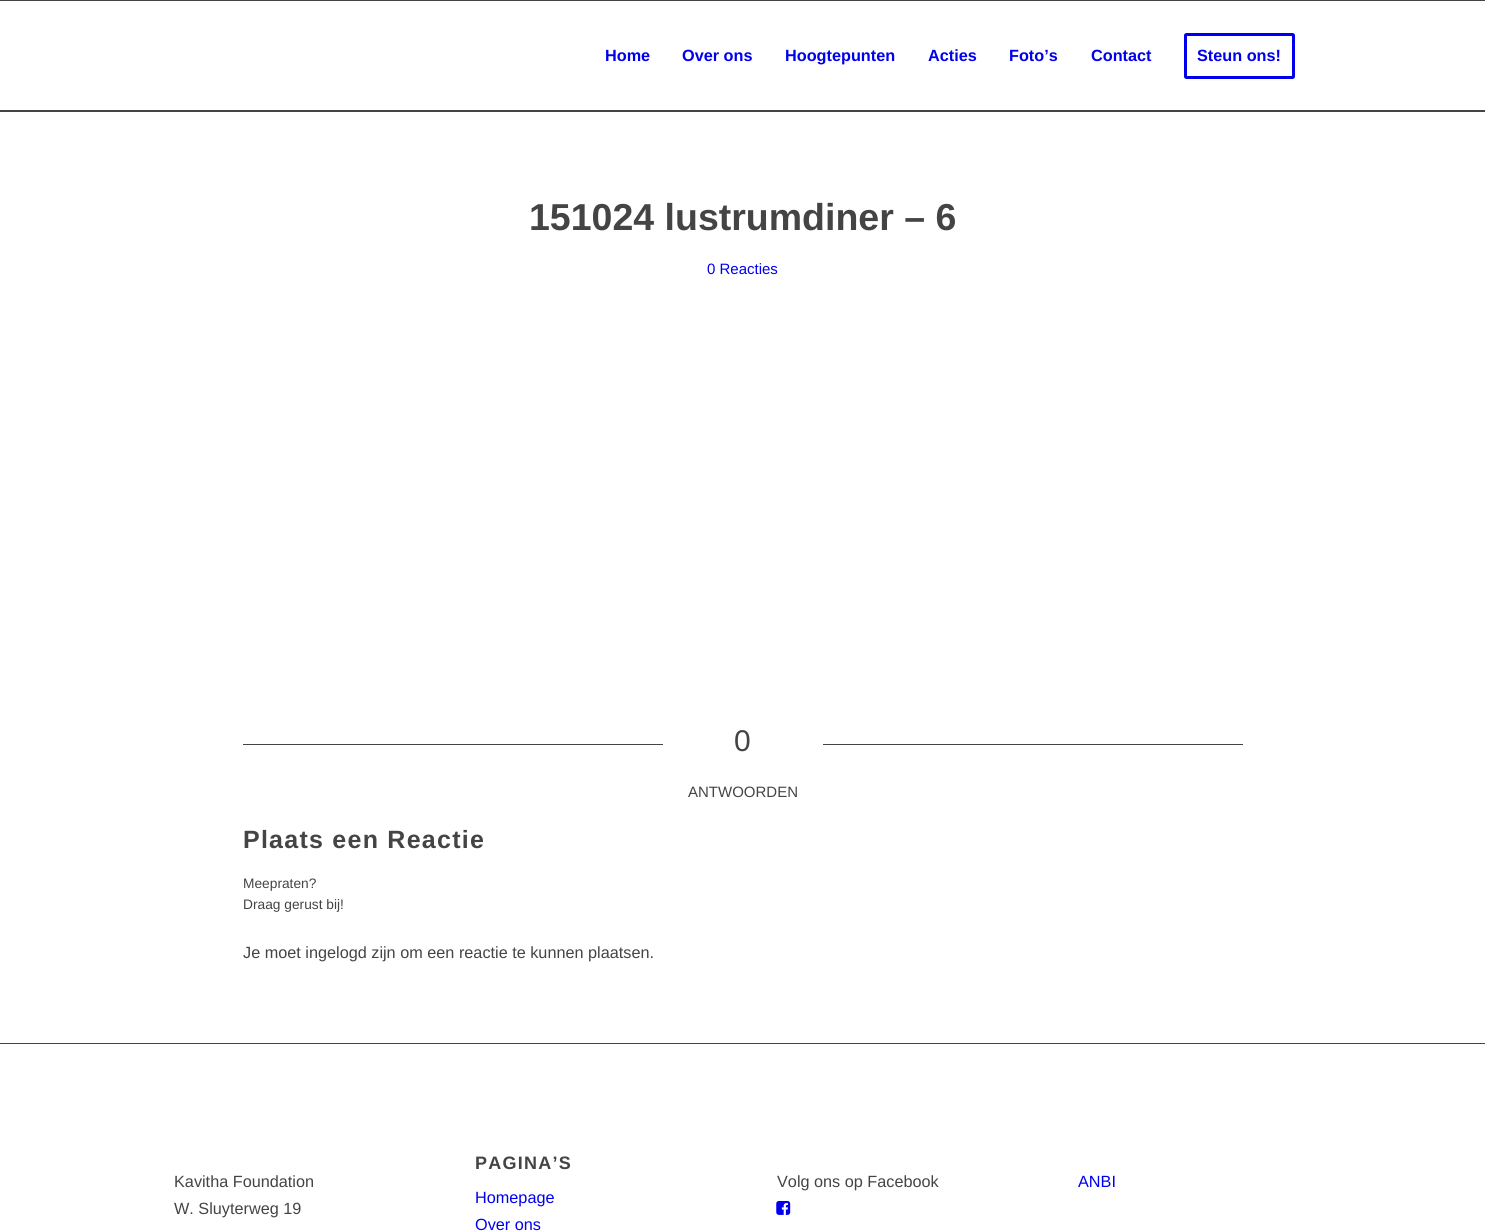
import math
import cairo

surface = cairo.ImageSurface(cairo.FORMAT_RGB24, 1485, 1231)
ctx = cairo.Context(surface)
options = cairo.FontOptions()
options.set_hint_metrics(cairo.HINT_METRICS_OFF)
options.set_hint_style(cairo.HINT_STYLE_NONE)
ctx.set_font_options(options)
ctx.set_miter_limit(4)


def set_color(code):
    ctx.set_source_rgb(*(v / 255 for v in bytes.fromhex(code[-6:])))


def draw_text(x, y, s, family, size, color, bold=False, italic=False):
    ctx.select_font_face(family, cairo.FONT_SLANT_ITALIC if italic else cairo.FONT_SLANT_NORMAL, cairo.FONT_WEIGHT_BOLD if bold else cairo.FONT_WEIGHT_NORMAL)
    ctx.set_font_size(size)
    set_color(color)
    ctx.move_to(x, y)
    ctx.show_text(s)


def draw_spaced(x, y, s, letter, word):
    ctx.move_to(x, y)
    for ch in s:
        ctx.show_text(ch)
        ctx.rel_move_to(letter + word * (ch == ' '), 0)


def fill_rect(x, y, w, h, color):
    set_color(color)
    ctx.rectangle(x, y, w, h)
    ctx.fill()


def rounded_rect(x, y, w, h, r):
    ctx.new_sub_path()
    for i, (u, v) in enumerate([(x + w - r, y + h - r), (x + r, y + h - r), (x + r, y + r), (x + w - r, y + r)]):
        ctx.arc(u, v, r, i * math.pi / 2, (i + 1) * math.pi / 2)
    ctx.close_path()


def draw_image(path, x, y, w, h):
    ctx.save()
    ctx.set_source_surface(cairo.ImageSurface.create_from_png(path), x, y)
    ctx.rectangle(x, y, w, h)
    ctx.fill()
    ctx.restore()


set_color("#ffffff")
ctx.paint()
fill_rect(0, 0, 1485, 1, "#444444")
draw_text(605, 61, "Home", "Liberation Sans", 16.25, "#0000ee", bold=True)
draw_text(682, 61, "Over ons", "Liberation Sans", 16.25, "#0000ee", bold=True)
draw_text(785, 61, "Hoogtepunten", "Liberation Sans", 16.25, "#0000ee", bold=True)
draw_text(928, 61, "Acties", "Liberation Sans", 16.25, "#0000ee", bold=True)
draw_text(1009, 61, "Foto’s", "Liberation Sans", 16.25, "#0000ee", bold=True)
draw_text(1091, 61, "Contact", "Liberation Sans", 16.25, "#0000ee", bold=True)
rounded_rect(1185.5, 34.5, 108, 43, 1)
ctx.set_line_width(3)
ctx.stroke()
draw_text(1197, 61, "Steun ons!", "Liberation Sans", 16.25, "#0000ee", bold=True)
fill_rect(0, 110, 1485, 2, "#444444")
draw_text(529, 230, "151024 lustrumdiner – 6", "Liberation Sans", 37.5, "#444444", bold=True)
draw_text(707, 274, "0 Reacties", "Liberation Sans", 15, "#0000ee")
fill_rect(243, 744, 420, 1, "#444444")
draw_text(734, 751, "0", "Liberation Sans", 30, "#444444")
fill_rect(823, 744, 420, 1, "#444444")
draw_text(688, 797, "ANTWOORDEN", "Liberation Sans", 15, "#444444")
ctx.select_font_face("Liberation Sans", cairo.FONT_SLANT_NORMAL, cairo.FONT_WEIGHT_BOLD)
ctx.set_font_size(25)
draw_spaced(243, 848, "Plaats een Reactie", 1.25, 0)
draw_text(243, 888, "Meepraten?", "Liberation Sans", 13.75, "#444444")
draw_text(243, 909, "Draag gerust bij!", "Liberation Sans", 13.75, "#444444")
draw_text(243, 958, "Je moet ingelogd zijn om een reactie te kunnen plaatsen.", "Liberation Sans", 16.25, "#444444")
fill_rect(0, 1043, 1485, 1, "#444444")
draw_text(174, 1187, "Kavitha Foundation", "Liberation Sans", 16.25, "#444444")
draw_text(174, 1214, "W. Sluyterweg 19", "Liberation Sans", 16.25, "#444444")
ctx.select_font_face("Liberation Sans", cairo.FONT_SLANT_NORMAL, cairo.FONT_WEIGHT_BOLD)
ctx.set_font_size(18)
draw_spaced(475, 1169, "PAGINA’S", 1.25, 0)
draw_text(475, 1203, "Homepage", "Liberation Sans", 16.25, "#0000ee")
draw_text(475, 1230, "Over ons", "Liberation Sans", 16.25, "#0000ee")
draw_text(777, 1187, "Volg ons op Facebook", "Liberation Sans", 16.25, "#444444")
draw_image("assets/img1.png", 776, 1201, 15, 14)
draw_text(1078, 1187, "ANBI", "Liberation Sans", 16.25, "#0000ee")
surface.write_to_png("output.png")
